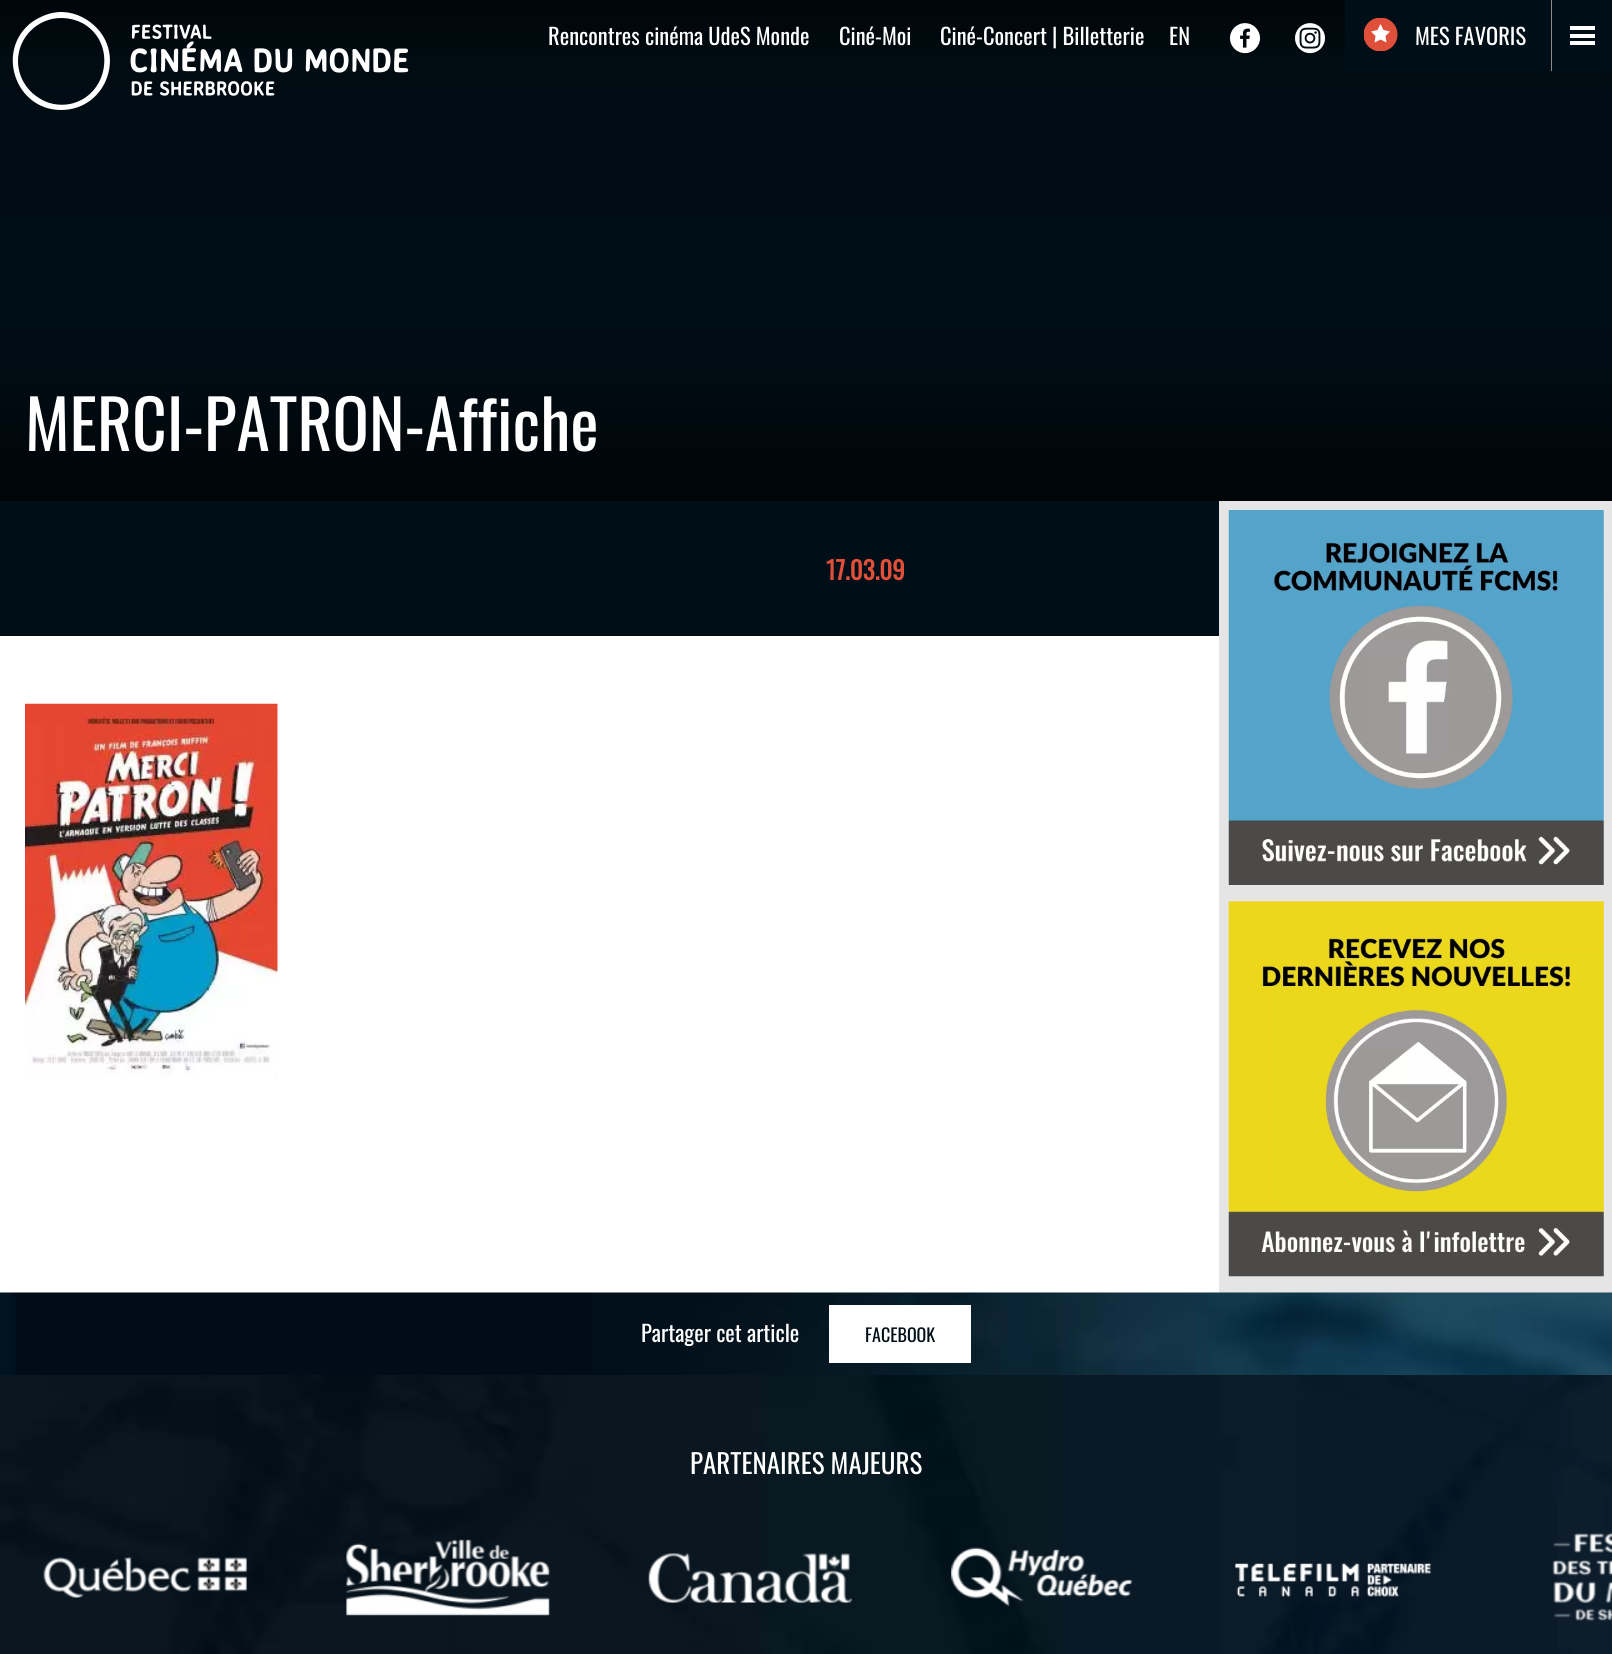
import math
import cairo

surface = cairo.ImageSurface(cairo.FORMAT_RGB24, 1612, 1654)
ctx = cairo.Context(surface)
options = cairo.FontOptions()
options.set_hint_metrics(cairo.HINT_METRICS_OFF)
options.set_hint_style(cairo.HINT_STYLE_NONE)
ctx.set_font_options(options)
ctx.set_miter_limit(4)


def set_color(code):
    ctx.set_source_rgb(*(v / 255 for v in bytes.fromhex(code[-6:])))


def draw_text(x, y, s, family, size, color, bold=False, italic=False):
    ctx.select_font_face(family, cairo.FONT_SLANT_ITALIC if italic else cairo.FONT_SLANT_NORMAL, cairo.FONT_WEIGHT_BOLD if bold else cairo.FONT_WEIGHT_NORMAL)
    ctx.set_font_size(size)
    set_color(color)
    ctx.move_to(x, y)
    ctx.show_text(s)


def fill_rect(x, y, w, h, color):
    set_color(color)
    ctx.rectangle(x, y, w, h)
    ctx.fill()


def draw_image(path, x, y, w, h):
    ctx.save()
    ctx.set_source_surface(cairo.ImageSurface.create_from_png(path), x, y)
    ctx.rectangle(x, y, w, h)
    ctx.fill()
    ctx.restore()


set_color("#ffffff")
ctx.paint()
gradient = cairo.LinearGradient(806, 0, 806, 250)
gradient.add_color_stop_rgba(0, 0, 0.039, 0.063, 1)
gradient.add_color_stop_rgba(1, 0, 0.055, 0.09, 1)
ctx.set_source(gradient)
ctx.rectangle(0, 0, 1612, 250)
ctx.fill()
gradient = cairo.LinearGradient(806, 0, 806, 100)
gradient.add_color_stop_rgba(0, 0, 0, 0, 0.3)
gradient.add_color_stop_rgba(1, 0, 0, 0, 0)
ctx.set_source(gradient)
ctx.rectangle(0, 0, 1612, 48)
ctx.fill()
set_color("#ffffff")
ctx.new_path()
ctx.move_to(61, 18)
ctx.curve_to(38, 18, 18, 37, 18, 61)
ctx.curve_to(18, 76, 26, 90, 39, 98)
ctx.curve_to(48, 104, 59, 106, 70, 104)
ctx.curve_to(108, 96, 117, 44, 84, 24)
ctx.curve_to(77, 20, 69, 18, 61, 18)
ctx.close_path()
ctx.move_to(61, 110)
ctx.curve_to(15, 110, -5, 50, 32, 22)
ctx.curve_to(41, 16, 51, 12, 61, 12)
ctx.curve_to(72, 12, 82, 16, 90, 22)
ctx.curve_to(128, 50, 108, 110, 61, 110)
ctx.close_path()
ctx.fill()
draw_image("assets/img1.png", 130, 24, 279, 72)
draw_text(548, 45, "Rencontres cinéma UdeS Monde", "Oswald", 22.5, "#ffffff")
draw_text(839, 45, "Ciné-Moi", "Oswald", 22.5, "#ffffff")
draw_text(940, 45, "Ciné-Concert | Billetterie", "Oswald", 22.5, "#ffffff")
draw_text(1169, 45, "EN", "Oswald", 22.5, "#ffffff")
draw_image("assets/img2.png", 1230, 23, 30, 31)
draw_image("assets/img3.png", 1295, 23, 30, 31)
fill_rect(1345, 0, 208, 71, "#000e17")
fill_rect(1551, 0, 1, 71, "#8b8d8c")
ctx.save()
ctx.rectangle(1364, 18, 34, 33)
ctx.clip()
set_color("#e04f39")
ctx.arc(1380.5, 34.5, 17, 0, 2 * math.pi)
ctx.fill()
ctx.restore()
set_color("#ffffff")
ctx.new_path()
ctx.move_to(1380.5, 24)
ctx.line_to(1383.5, 30)
ctx.line_to(1390, 31.5)
ctx.line_to(1385.5, 36)
ctx.line_to(1386.5, 42.5)
ctx.line_to(1380.5, 39.5)
ctx.line_to(1374.5, 42.5)
ctx.line_to(1375.5, 36)
ctx.line_to(1371, 31.5)
ctx.line_to(1377.5, 30)
ctx.close_path()
ctx.fill()
draw_text(1415, 45, "MES FAVORIS", "Oswald", 22.5, "#ffffff")
fill_rect(1553, 0, 59, 73, "#000e17")
fill_rect(1570, 34, 25, 4, "#ffffff")
fill_rect(1570, 26, 25, 4, "#ffffff")
fill_rect(1570, 41, 25, 4, "#ffffff")
fill_rect(0, 250, 1612, 64, "#000e17")
gradient = cairo.LinearGradient(806, 314, 806, 501)
gradient.add_color_stop_rgba(0, 0, 0.055, 0.09, 1)
gradient.add_color_stop_rgba(1, 0, 0.02, 0.031, 1)
ctx.set_source(gradient)
ctx.rectangle(0, 314, 1612, 187)
ctx.fill()
draw_text(25, 451, "MERCI-PATRON-Affiche", "Oswald", 67.5, "#ffffff")
fill_rect(0, 501, 1219, 135, "#000e17")
draw_text(826, 580, "17.03.09", "Oswald", 25, "#e04f39", bold=True)
draw_image("assets/img4.png", 25, 703, 253, 376)
fill_rect(1219, 501, 393, 792, "#e5e5e5")
draw_image("assets/img5.png", 1228, 510, 376, 375)
draw_image("assets/img6.png", 1228, 901, 376, 376)
draw_image("assets/img7.png", 0, 1292, 1612, 83)
draw_text(641, 1342, "Partager cet article", "Oswald", 22.5, "#ffffff")
fill_rect(829, 1305, 142, 58, "#ffffff")
draw_text(865, 1342, "FACEBOOK", "Oswald", 18, "#000e17")
draw_image("assets/img8.png", 0, 1375, 1612, 279)
draw_text(690, 1474, "PARTENAIRES MAJEURS", "Oswald", 27, "#ffffff")
draw_image("assets/img9.png", 43, 1557, 204, 41)
draw_image("assets/img10.png", 346, 1539, 204, 77)
draw_image("assets/img11.png", 648, 1553, 204, 50)
draw_image("assets/img12.png", 951, 1547, 182, 60)
draw_image("assets/img13.png", 1234, 1563, 198, 34)
draw_image("assets/img14.png", 1552, 1532, 60, 89)
surface.write_to_png("output.png")
